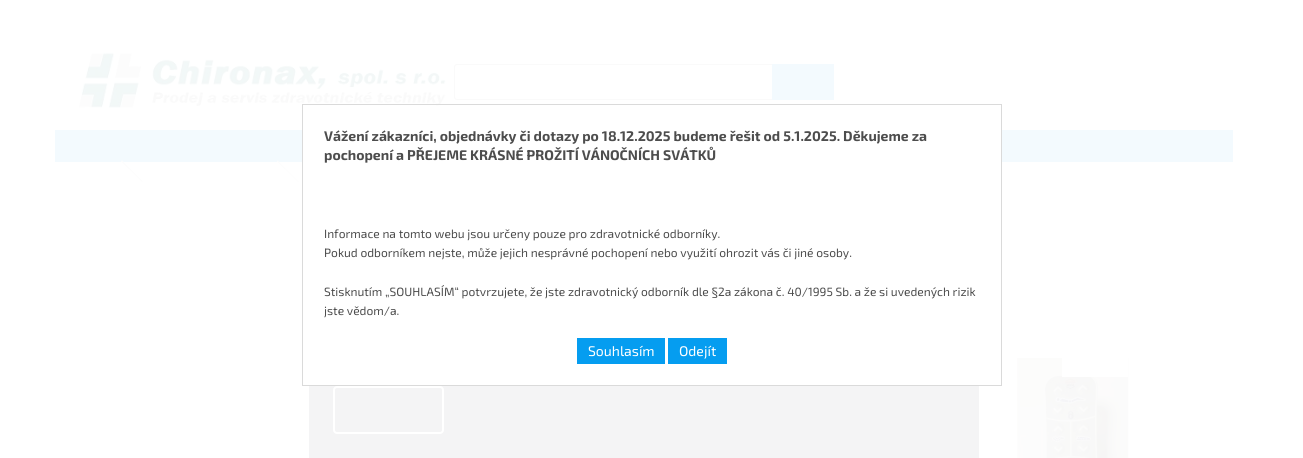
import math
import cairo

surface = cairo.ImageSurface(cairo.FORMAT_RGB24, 1303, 458)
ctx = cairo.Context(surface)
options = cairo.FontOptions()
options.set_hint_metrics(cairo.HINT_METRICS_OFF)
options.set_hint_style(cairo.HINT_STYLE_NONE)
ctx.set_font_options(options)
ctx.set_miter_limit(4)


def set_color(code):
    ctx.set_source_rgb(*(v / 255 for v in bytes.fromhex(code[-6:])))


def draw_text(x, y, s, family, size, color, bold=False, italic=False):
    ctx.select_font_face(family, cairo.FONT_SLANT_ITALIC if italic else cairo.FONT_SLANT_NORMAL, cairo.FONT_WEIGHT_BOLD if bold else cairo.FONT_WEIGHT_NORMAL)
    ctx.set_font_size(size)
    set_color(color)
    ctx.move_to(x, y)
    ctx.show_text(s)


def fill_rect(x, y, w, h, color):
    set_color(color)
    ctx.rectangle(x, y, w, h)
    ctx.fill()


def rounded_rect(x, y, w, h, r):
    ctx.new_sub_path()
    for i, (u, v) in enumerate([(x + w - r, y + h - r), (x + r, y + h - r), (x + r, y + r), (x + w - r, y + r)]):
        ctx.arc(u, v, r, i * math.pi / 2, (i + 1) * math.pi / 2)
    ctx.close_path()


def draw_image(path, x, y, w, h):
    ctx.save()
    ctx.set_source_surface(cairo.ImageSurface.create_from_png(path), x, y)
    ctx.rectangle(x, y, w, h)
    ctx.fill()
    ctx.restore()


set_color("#ffffff")
ctx.paint()
draw_image("assets/img1.png", 79, 51, 367, 58)
rounded_rect(454.5, 64.5, 379, 35, 2.5)
set_color("#fafafa")
ctx.set_line_width(1)
ctx.stroke()
fill_rect(772, 64, 62, 36, "#f3fafe")
fill_rect(55, 130, 1178, 32, "#f3fafe")
set_color("#fdfdfd")
ctx.new_path()
ctx.move_to(121, 161.5)
ctx.line_to(122, 160.5)
ctx.line_to(143, 181.5)
ctx.line_to(142, 182)
ctx.close_path()
ctx.fill()
ctx.new_path()
ctx.move_to(277, 161.5)
ctx.line_to(277.5, 160.5)
ctx.line_to(298.5, 181.5)
ctx.line_to(298, 182)
ctx.close_path()
ctx.fill()
draw_image("assets/img2.png", 1016, 358, 113, 100)
fill_rect(1062, 358, 66, 19, "#ffffff")
fill_rect(303, 130, 698, 32, "#ffffff")
ctx.rectangle(302.5, 104.5, 699, 281)
set_color("#dadada")
ctx.stroke()
draw_text(324, 141, "Vážení zákazníci, objednávky či dotazy po 18.12.2025 budeme řešit od 5.1.2025. Děkujeme za", "Exo 2", 14, "#4d4d4d", bold=True)
draw_text(324, 160, "pochopení a PŘEJEME KRÁSNÉ PROŽITÍ VÁNOČNÍCH SVÁTKŮ", "Exo 2", 14, "#4d4d4d", bold=True)
draw_text(324, 238, "Informace na tomto webu jsou určeny pouze pro zdravotnické odborníky.", "Exo 2", 12, "#4d4d4d")
draw_text(324, 257, "Pokud odborníkem nejste, může jejich nesprávné pochopení nebo využití ohrozit vás či jiné osoby.", "Exo 2", 12, "#4d4d4d")
draw_text(324, 296, "Stisknutím „SOUHLASÍM“ potvrzujete, že jste zdravotnický odborník dle §2a zákona č. 40/1995 Sb. a že si uvedených rizik", "Exo 2", 12, "#4d4d4d")
draw_text(324, 315, "jste vědom/a.", "Exo 2", 12, "#4d4d4d")
fill_rect(577, 338, 88, 26, "#059df0")
draw_text(588, 356, "Souhlasím", "Exo 2", 14, "#ffffff")
fill_rect(668, 338, 59, 26, "#059df0")
draw_text(679, 356, "Odejít", "Exo 2", 14, "#ffffff")
fill_rect(309, 386, 670, 72, "#f4f4f5")
rounded_rect(334, 387, 109, 46, 3)
set_color("#ffffff")
ctx.set_line_width(2)
ctx.stroke()
surface.write_to_png("output.png")
